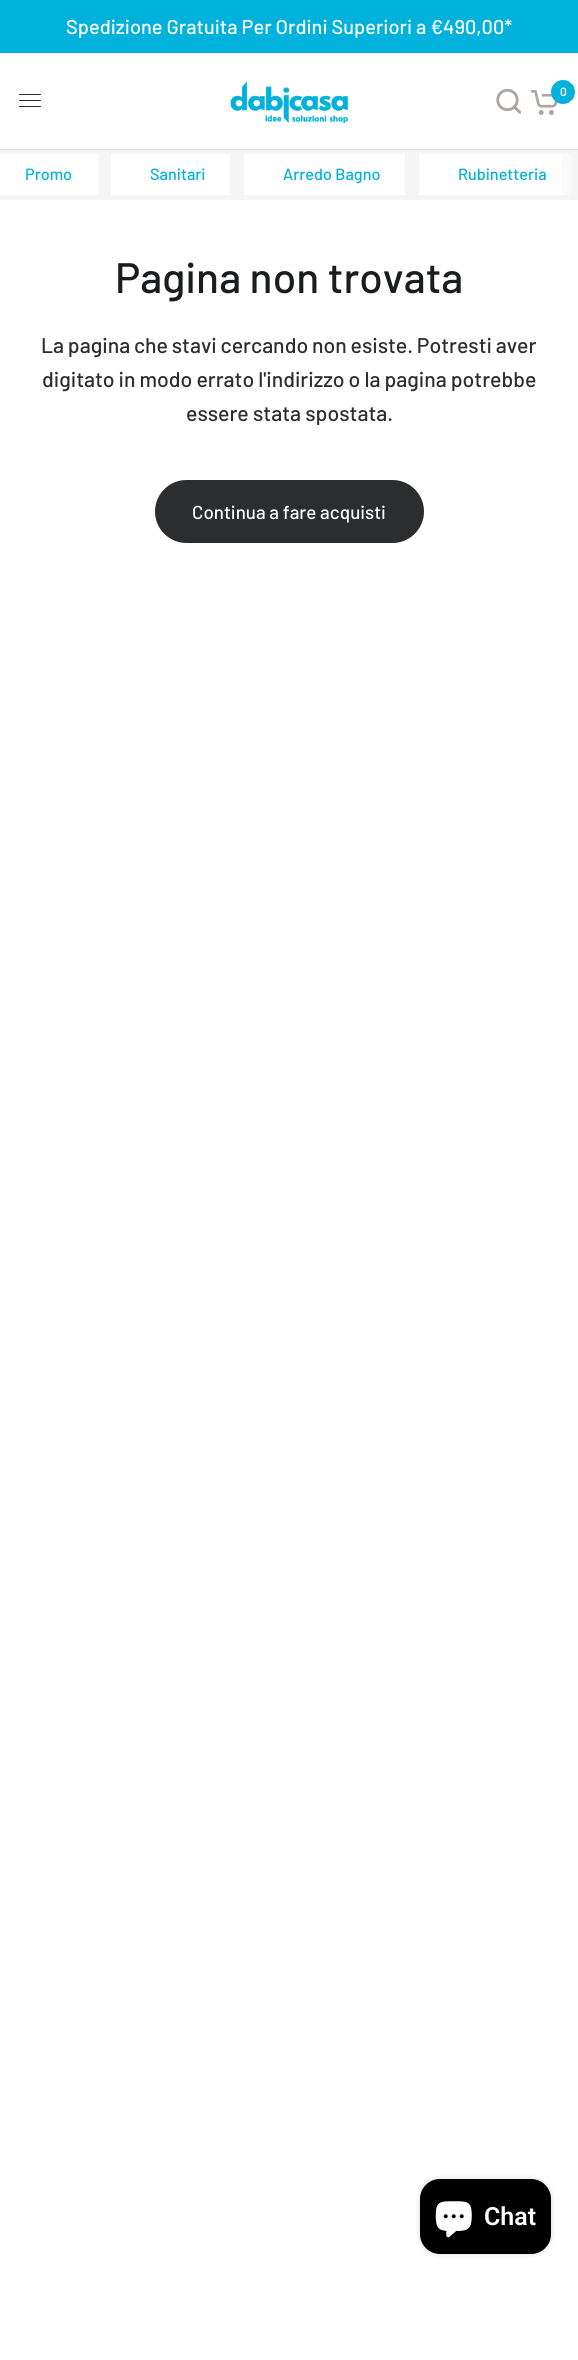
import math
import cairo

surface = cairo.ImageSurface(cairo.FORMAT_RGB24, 578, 2360)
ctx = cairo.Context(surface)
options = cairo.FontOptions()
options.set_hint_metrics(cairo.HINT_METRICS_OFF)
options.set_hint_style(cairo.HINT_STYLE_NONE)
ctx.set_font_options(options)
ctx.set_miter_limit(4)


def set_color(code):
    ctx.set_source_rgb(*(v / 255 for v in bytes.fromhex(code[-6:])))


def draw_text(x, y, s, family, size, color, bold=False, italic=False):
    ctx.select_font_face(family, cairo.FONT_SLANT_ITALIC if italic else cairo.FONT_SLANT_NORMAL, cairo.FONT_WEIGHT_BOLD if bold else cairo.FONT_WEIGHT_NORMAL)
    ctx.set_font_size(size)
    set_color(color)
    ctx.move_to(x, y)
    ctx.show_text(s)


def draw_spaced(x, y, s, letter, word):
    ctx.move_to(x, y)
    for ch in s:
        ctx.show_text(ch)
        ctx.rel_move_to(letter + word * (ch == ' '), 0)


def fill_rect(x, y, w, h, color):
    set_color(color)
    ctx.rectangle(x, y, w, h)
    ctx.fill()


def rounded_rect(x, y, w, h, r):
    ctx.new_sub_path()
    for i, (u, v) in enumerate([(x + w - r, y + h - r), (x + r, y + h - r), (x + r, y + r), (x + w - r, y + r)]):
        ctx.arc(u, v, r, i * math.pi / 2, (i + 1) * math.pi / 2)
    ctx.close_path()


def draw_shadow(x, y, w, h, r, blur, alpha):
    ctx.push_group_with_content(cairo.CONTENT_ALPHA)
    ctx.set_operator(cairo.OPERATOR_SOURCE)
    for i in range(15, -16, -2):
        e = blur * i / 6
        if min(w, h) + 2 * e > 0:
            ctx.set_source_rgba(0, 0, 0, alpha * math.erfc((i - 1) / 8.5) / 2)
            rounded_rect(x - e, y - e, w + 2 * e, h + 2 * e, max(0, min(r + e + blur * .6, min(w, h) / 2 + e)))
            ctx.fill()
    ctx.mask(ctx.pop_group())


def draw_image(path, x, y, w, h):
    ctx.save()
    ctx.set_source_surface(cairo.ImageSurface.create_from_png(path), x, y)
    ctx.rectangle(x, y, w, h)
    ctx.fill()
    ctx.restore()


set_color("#ffffff")
ctx.paint()
fill_rect(0, 0, 578, 53, "#00b2db")
draw_text(66, 34, "Spedizione Gratuita Per Ordini Superiori a €490,00*", "Barlow Medium", 20, "#ffffff")
draw_image("assets/img1.png", 230, 81, 118, 43)
draw_image("assets/img2.png", 496, 89, 25, 25)
draw_image("assets/img3.png", 531, 90, 27, 25)
set_color("#00b2db")
ctx.arc(563, 92, 12, 0, 2 * math.pi)
ctx.fill()
draw_text(560, 96, "0", "Barlow SemiBold", 12, "#ffffff")
set_color("#2c2d2e")
rounded_rect(19, 94, 22, 1, 0.5)
ctx.fill()
rounded_rect(19, 100, 22, 1, 0.5)
ctx.fill()
rounded_rect(19, 106, 22, 1, 0.5)
ctx.fill()
fill_rect(0, 149, 578, 1, "#dadce0")
fill_rect(0, 150, 578, 50, "#f5f5f5")
fill_rect(0, 154, 98, 41, "#ffffff")
draw_text(25, 180, "Promo", "Barlow Medium", 16.25, "#00b2db")
fill_rect(111, 154, 119, 41, "#ffffff")
draw_text(150, 180, "Sanitari", "Barlow Medium", 16.25, "#00b2db")
fill_rect(244, 154, 161, 41, "#ffffff")
draw_text(283, 180, "Arredo Bagno", "Barlow Medium", 16.25, "#00b2db")
fill_rect(419, 154, 152, 41, "#ffffff")
draw_text(458, 180, "Rubinetteria", "Barlow Medium", 16.25, "#00b2db")
gradient = cairo.LinearGradient(554, 174, 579, 174)
gradient.add_color_stop_rgba(0, 0.961, 0.961, 0.961, 0)
gradient.add_color_stop_rgba(1, 0.961, 0.961, 0.961, 1)
ctx.set_source(gradient)
ctx.rectangle(561, 154, 10, 41)
ctx.fill()
draw_text(115, 293, "Pagina non trovata", "Barlow Medium", 42.5, "#1a1c1d")
ctx.set_font_size(21.25)
set_color("#2c2d2e")
draw_spaced(41, 353, "La pagina che stavi cercando non esiste. Potresti aver", 0, -0.5)
draw_spaced(42, 387, "digitato in modo errato l'indirizzo o la pagina potrebbe", 0, -0.25)
draw_text(186, 421, "essere stata spostata.", "Barlow Medium", 21.25, "#2c2d2e")
rounded_rect(155, 480, 269, 63, 31.5)
ctx.fill()
draw_text(192, 519, "Continua a fare acquisti", "Barlow Medium", 18.75, "#ffffff")
set_color("#000000")
draw_shadow(420, 2179, 131, 75, 20, 3, 0.15)
set_color("#000000")
rounded_rect(420, 2179, 131, 75, 20)
ctx.fill()
draw_image("assets/img4.png", 435, 2201, 37, 37)
draw_text(484, 2225, "Chat", "Roboto SemiBold", 25, "#ffffff")
surface.write_to_png("output.png")
